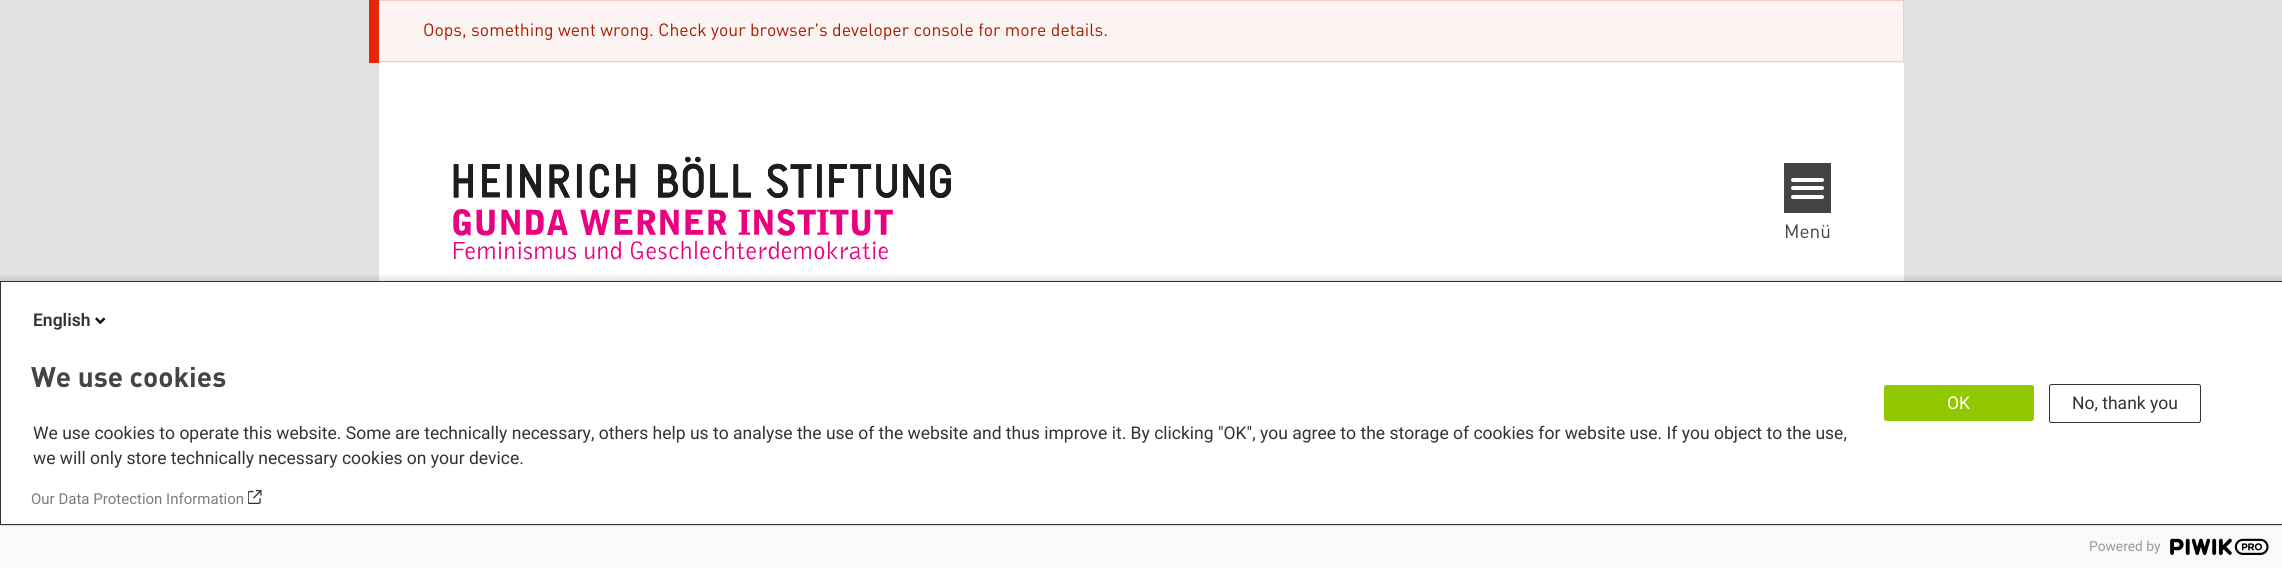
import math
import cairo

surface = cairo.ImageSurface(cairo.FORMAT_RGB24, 2282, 568)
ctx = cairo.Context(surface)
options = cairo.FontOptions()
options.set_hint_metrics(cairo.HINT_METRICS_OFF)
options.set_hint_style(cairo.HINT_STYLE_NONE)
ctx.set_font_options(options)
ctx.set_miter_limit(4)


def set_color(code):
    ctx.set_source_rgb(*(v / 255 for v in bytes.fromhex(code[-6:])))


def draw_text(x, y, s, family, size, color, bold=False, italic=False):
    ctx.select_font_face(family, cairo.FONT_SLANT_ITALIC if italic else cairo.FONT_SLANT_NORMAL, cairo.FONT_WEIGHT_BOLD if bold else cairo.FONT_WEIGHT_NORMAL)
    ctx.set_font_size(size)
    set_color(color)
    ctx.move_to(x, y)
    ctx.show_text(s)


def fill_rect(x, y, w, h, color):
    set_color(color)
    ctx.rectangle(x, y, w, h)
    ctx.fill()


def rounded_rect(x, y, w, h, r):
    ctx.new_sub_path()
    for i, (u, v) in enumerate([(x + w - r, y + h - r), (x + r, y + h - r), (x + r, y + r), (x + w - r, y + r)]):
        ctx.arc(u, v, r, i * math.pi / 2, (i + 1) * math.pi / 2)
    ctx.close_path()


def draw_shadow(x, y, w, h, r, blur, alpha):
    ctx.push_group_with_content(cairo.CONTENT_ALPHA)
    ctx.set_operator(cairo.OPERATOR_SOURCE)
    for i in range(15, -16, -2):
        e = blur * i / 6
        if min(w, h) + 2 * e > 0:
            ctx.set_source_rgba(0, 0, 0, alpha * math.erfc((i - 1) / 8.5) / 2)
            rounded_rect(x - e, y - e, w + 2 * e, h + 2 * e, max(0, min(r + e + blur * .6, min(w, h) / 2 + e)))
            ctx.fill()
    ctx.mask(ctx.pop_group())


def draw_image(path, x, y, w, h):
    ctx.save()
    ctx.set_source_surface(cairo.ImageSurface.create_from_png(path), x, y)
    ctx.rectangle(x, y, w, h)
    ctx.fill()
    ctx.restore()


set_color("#e2e2e2")
ctx.paint()
fill_rect(379, 63, 1525, 218, "#ffffff")
set_color("#e62600")
ctx.new_path()
ctx.move_to(369, 0)
ctx.line_to(369, 63)
ctx.line_to(1894, 63)
ctx.line_to(1894, 62)
ctx.line_to(379, 62)
ctx.line_to(379, 0)
ctx.close_path()
ctx.fill()
fill_rect(379, 1, 1524, 62, "#fcf4f2")
fill_rect(379, 0, 1525, 1, "#f9c9bf")
fill_rect(1903, 0, 1, 63, "#f9c9bf")
fill_rect(379, 61, 1525, 1, "#f9c9bf")
draw_text(423, 36, "Oops, something went wrong. Check your browser's developer console for more details.", "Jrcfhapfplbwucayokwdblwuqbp", 17.6, "#a51b00")
draw_image("assets/img1.png", 453, 156, 498, 104)
fill_rect(1784, 163, 47, 50, "#444444")
set_color("#ffffff")
rounded_rect(1791, 186, 33, 4, 2)
ctx.fill()
rounded_rect(1791, 178, 33, 4, 2)
ctx.fill()
rounded_rect(1791, 195, 33, 4, 2)
ctx.fill()
draw_text(1784, 238, "Menü", "Jrcfhapfplbwucayokwdblwuqbp", 19, "#444444")
set_color("#000000")
draw_shadow(-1, 278, 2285, 290, 0, 3, 0.14)
set_color("#ffffff")
ctx.rectangle(0.5, 281.5, 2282, 243)
ctx.fill_preserve()
set_color("#333333")
ctx.set_line_width(1)
ctx.stroke()
draw_text(33, 326, "English", "Roboto SemiBold", 17.5, "#333333")
draw_image("assets/img2.png", 95, 317, 11, 8)
draw_text(31, 387, "We use cookies", "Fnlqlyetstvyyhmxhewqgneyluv", 28, "#444444", bold=True)
draw_text(33, 439, "We use cookies to operate this website. Some are technically necessary, others help us to analyse the use of the website and thus improve it. By clicking \"OK\", you agree to the storage of cookies for website use. If you object to the use,", "Roboto", 17.5, "#333333")
draw_text(33, 464, "we will only store technically necessary cookies on your device.", "Roboto", 17.5, "#333333")
draw_text(31, 504, "Our Data Protection Information", "Roboto", 15, "#7c7c7c")
draw_image("assets/img3.png", 248, 490, 14, 14)
set_color("#91c800")
rounded_rect(1884, 385, 150, 36, 2.5)
ctx.fill()
draw_text(1947, 409, "OK", "Roboto", 17.5, "#ffffff")
rounded_rect(2049.5, 384.5, 151, 38, 2)
set_color("#333333")
ctx.stroke()
draw_text(2072, 409, "No, thank you", "Roboto", 17.5, "#333333")
fill_rect(0, 526, 2282, 42, "#fafafa")
fill_rect(0, 525, 2282, 1, "#dddddd")
draw_text(2089, 551, "Powered by", "Roboto", 13.75, "#999999")
draw_image("assets/img4.png", 2170, 538, 99, 17)
surface.write_to_png("output.png")
